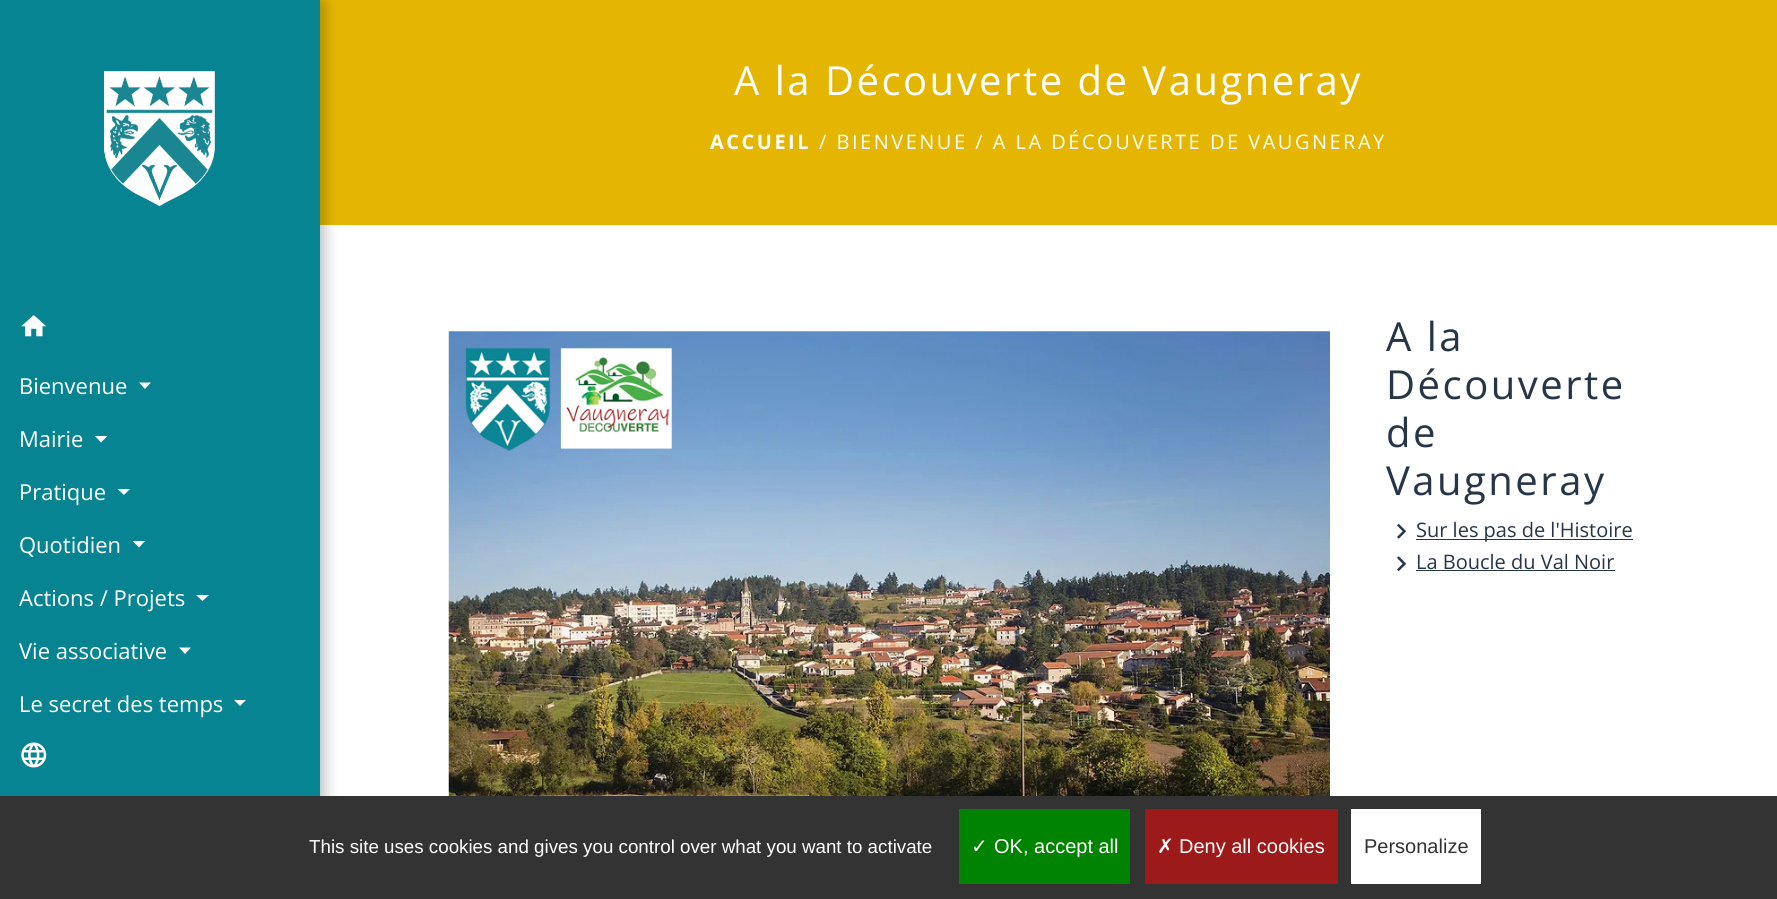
import math
import cairo

surface = cairo.ImageSurface(cairo.FORMAT_RGB24, 1777, 899)
ctx = cairo.Context(surface)
options = cairo.FontOptions()
options.set_hint_metrics(cairo.HINT_METRICS_OFF)
options.set_hint_style(cairo.HINT_STYLE_NONE)
ctx.set_font_options(options)
ctx.set_miter_limit(4)


def set_color(code):
    ctx.set_source_rgb(*(v / 255 for v in bytes.fromhex(code[-6:])))


def draw_text(x, y, s, family, size, color, bold=False, italic=False):
    ctx.select_font_face(family, cairo.FONT_SLANT_ITALIC if italic else cairo.FONT_SLANT_NORMAL, cairo.FONT_WEIGHT_BOLD if bold else cairo.FONT_WEIGHT_NORMAL)
    ctx.set_font_size(size)
    set_color(color)
    ctx.move_to(x, y)
    ctx.show_text(s)


def draw_spaced(x, y, s, letter, word):
    ctx.move_to(x, y)
    for ch in s:
        ctx.show_text(ch)
        ctx.rel_move_to(letter + word * (ch == ' '), 0)


def fill_rect(x, y, w, h, color):
    set_color(color)
    ctx.rectangle(x, y, w, h)
    ctx.fill()


def rounded_rect(x, y, w, h, r):
    ctx.new_sub_path()
    for i, (u, v) in enumerate([(x + w - r, y + h - r), (x + r, y + h - r), (x + r, y + r), (x + w - r, y + r)]):
        ctx.arc(u, v, r, i * math.pi / 2, (i + 1) * math.pi / 2)
    ctx.close_path()


def draw_shadow(x, y, w, h, r, blur, alpha):
    ctx.push_group_with_content(cairo.CONTENT_ALPHA)
    ctx.set_operator(cairo.OPERATOR_SOURCE)
    for i in range(15, -16, -2):
        e = blur * i / 6
        if min(w, h) + 2 * e > 0:
            ctx.set_source_rgba(0, 0, 0, alpha * math.erfc((i - 1) / 8.5) / 2)
            rounded_rect(x - e, y - e, w + 2 * e, h + 2 * e, max(0, min(r + e + blur * .6, min(w, h) / 2 + e)))
            ctx.fill()
    ctx.mask(ctx.pop_group())


def draw_image(path, x, y, w, h):
    ctx.save()
    ctx.set_source_surface(cairo.ImageSurface.create_from_png(path), x, y)
    ctx.rectangle(x, y, w, h)
    ctx.fill()
    ctx.restore()


set_color("#ffffff")
ctx.paint()
fill_rect(320, 0, 1457, 225, "#e5b601")
set_color("#000000")
draw_shadow(3, 3, 320, 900, 0, 8, 0.3)
fill_rect(0, 0, 320, 796, "#078492")
draw_image("assets/img1.png", 104, 71, 111, 136)
draw_image("assets/img2.png", 21, 315, 26, 22)
draw_text(19, 394, "Bienvenue", "Open Sans", 22, "#ffffff")
ctx.new_path()
ctx.move_to(139, 382.5)
ctx.line_to(151, 382.5)
ctx.line_to(145, 389)
ctx.close_path()
ctx.fill()
draw_text(19, 447, "Mairie", "Open Sans", 22, "#ffffff")
ctx.new_path()
ctx.move_to(95, 436)
ctx.line_to(107.5, 436)
ctx.line_to(101, 442.5)
ctx.close_path()
ctx.fill()
draw_text(19, 500, "Pratique", "Open Sans", 22, "#ffffff")
ctx.new_path()
ctx.move_to(117.5, 489)
ctx.line_to(130, 489)
ctx.line_to(124, 495)
ctx.close_path()
ctx.fill()
draw_text(19, 553, "Quotidien", "Open Sans", 22, "#ffffff")
ctx.new_path()
ctx.move_to(132.5, 541)
ctx.line_to(145, 541)
ctx.line_to(139, 547.5)
ctx.close_path()
ctx.fill()
draw_text(19, 606, "Actions / Projets", "Open Sans", 22, "#ffffff")
ctx.new_path()
ctx.move_to(196, 595)
ctx.line_to(209, 595)
ctx.line_to(202.5, 601)
ctx.close_path()
ctx.fill()
draw_text(19, 659, "Vie associative", "Open Sans", 22, "#ffffff")
ctx.new_path()
ctx.move_to(179, 647.5)
ctx.line_to(191, 647.5)
ctx.line_to(185, 654)
ctx.close_path()
ctx.fill()
draw_text(19, 712, "Le secret des temps", "Open Sans", 22, "#ffffff")
ctx.new_path()
ctx.move_to(234, 700)
ctx.line_to(246, 700)
ctx.line_to(240, 706)
ctx.close_path()
ctx.fill()
draw_image("assets/img3.png", 21, 742, 26, 26)
ctx.set_font_size(40)
draw_spaced(734, 95, "A la Découverte de Vaugneray", 2.5, 0)
ctx.select_font_face("Open Sans", cairo.FONT_SLANT_NORMAL, cairo.FONT_WEIGHT_BOLD)
ctx.set_font_size(20)
draw_spaced(710, 149, "ACCUEIL", 2.5, 0)
ctx.select_font_face("Open Sans")
draw_spaced(819, 149, "/ BIENVENUE / A LA DÉCOUVERTE DE VAUGNERAY", 2.5, 0)
draw_image("assets/img4.png", 448, 331, 882, 465)
ctx.set_font_size(40)
set_color("#273548")
draw_spaced(1386, 351, "A la", 2.5, 0)
draw_spaced(1386, 399, "Découverte", 2.5, 0)
draw_spaced(1386, 447, "de", 2.5, 0)
draw_spaced(1386, 495, "Vaugneray", 2.5, 0)
draw_image("assets/img5.png", 1397, 523, 10, 16)
fill_rect(1416, 539, 217, 1, "#273548")
draw_text(1416, 537, "Sur les pas de l'Histoire", "Open Sans", 20, "#273548")
draw_image("assets/img6.png", 1397, 556, 10, 16)
draw_text(1416, 569, "La Boucle du Val Noir", "Open Sans", 20, "#273548")
fill_rect(1416, 570, 199, 1, "#273548")
fill_rect(0, 796, 1777, 103, "#333333")
draw_text(309, 853, "This site uses cookies and gives you control over what you want to activate", "Liberation Sans", 18.75, "#ffffff")
fill_rect(959, 809, 171, 75, "#008300")
draw_text(971, 853, "✓", "DejaVu Sans", 20, "#ffffff")
draw_text(994, 853, "OK, accept all", "Liberation Sans", 20, "#ffffff")
fill_rect(1145, 809, 193, 75, "#9c1a1a")
draw_text(1157, 853, "✗", "DejaVu Sans", 20, "#ffffff")
draw_text(1179, 853, "Deny all cookies", "Liberation Sans", 20, "#ffffff")
fill_rect(1351, 809, 130, 75, "#ffffff")
draw_text(1364, 853, "Personalize", "Liberation Sans", 20, "#333333")
surface.write_to_png("output.png")
